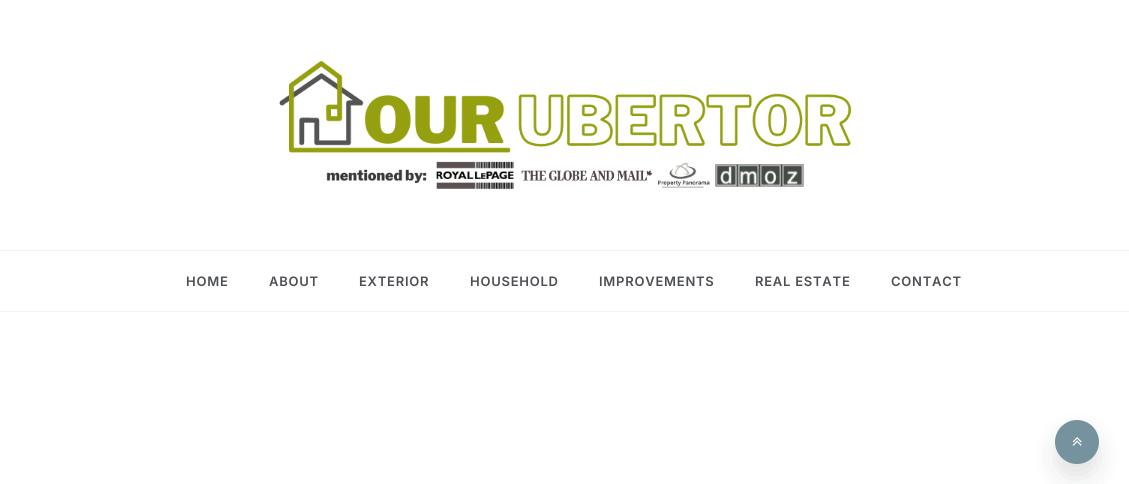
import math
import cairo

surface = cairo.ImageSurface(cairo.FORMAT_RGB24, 1129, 484)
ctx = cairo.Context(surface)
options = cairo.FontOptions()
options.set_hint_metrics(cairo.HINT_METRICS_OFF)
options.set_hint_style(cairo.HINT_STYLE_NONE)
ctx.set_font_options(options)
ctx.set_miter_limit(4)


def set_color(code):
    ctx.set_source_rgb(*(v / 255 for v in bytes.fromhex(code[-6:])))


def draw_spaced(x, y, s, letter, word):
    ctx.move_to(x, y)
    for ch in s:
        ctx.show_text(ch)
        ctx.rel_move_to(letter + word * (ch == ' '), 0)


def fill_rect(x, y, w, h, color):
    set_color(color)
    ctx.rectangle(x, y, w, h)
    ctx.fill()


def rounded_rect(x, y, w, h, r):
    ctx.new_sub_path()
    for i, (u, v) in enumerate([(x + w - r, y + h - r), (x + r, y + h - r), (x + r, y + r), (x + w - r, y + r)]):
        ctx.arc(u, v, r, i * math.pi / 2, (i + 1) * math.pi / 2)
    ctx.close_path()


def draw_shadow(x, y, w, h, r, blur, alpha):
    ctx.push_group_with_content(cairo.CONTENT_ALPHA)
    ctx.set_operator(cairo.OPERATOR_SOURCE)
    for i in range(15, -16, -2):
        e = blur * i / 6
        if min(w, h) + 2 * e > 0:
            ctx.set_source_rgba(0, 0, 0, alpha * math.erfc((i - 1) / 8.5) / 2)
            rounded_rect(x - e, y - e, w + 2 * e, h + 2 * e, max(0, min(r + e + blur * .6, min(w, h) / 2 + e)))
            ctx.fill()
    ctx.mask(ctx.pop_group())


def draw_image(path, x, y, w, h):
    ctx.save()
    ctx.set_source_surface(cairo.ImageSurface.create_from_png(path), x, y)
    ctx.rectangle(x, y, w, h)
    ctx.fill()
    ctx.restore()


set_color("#ffffff")
ctx.paint()
fill_rect(0, 311, 1129, 1, "#f2f2f2")
fill_rect(0, 250, 1129, 1, "#f2f2f2")
draw_image("assets/img1.png", 279, 61, 573, 128)
ctx.select_font_face("Inter SemiBold")
ctx.set_font_size(13)
set_color("#4c4f53")
draw_spaced(186, 286, "HOME", 0.75, 0)
draw_spaced(269, 286, "ABOUT", 0.75, 0)
draw_spaced(359, 286, "EXTERIOR", 0.75, 0)
draw_spaced(470, 286, "HOUSEHOLD", 0.75, 0)
draw_spaced(599, 286, "IMPROVEMENTS", 0.75, 0)
draw_spaced(755, 286, "REAL ESTATE", 0.75, 0)
draw_spaced(891, 286, "CONTACT", 0.75, 0)
set_color("#0e1114")
draw_shadow(1059, 438, 36, 36, 18, 14, 0.15)
set_color("#77929f")
ctx.arc(1077, 442, 22, 0, 2 * math.pi)
ctx.fill()
draw_image("assets/img2.png", 1072, 437, 10, 9)
surface.write_to_png("output.png")
